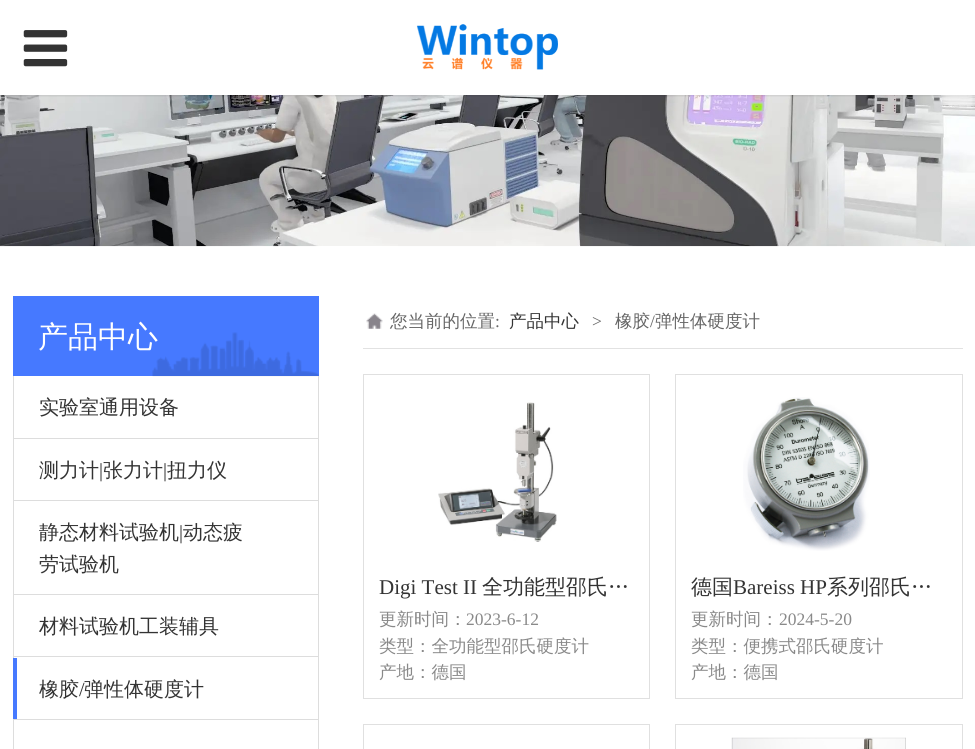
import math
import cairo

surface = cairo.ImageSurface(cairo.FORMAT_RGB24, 975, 749)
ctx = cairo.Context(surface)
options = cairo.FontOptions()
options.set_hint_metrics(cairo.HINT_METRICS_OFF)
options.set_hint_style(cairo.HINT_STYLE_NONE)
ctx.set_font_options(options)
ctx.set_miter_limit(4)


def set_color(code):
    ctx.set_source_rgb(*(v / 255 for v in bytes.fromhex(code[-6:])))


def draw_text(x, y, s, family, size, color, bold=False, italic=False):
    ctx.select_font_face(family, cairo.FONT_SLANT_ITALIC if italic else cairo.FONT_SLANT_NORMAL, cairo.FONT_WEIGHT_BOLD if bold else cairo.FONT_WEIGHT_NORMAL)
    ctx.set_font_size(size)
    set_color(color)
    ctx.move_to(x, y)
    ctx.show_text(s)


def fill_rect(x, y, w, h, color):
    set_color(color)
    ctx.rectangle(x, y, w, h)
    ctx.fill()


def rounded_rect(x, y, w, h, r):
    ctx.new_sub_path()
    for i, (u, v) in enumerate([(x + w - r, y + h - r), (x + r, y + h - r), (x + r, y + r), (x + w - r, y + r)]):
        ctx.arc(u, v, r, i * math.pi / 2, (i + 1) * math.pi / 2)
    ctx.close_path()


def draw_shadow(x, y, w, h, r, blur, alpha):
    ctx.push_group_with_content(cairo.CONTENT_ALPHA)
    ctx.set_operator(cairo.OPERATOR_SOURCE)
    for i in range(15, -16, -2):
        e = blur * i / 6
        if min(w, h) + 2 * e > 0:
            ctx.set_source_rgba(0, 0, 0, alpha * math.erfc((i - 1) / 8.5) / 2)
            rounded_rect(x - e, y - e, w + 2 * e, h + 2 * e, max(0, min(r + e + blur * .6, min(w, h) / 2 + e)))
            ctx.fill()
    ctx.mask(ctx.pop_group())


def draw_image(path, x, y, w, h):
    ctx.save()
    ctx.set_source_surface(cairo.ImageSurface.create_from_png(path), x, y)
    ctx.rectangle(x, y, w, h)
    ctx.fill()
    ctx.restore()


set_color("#ffffff")
ctx.paint()
draw_image("assets/img3.png", 0, 95, 975, 152)
ctx.save()
ctx.rectangle(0, 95, 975, 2)
ctx.clip()
set_color("#000000")
draw_shadow(0, 1, 975, 95, 0, 1, 0.1)
ctx.restore()
draw_image("assets/img1.png", 23, 30, 45, 37)
draw_image("assets/img2.png", 416, 24, 142, 46)
fill_rect(13, 296, 306, 80, "#4679ff")
draw_image("assets/img4.png", 152, 332, 167, 45)
draw_text(38, 347, "产品中心", "WenQuanYi Zen Hei Medium", 30, "#ffffff")
fill_rect(318, 376, 1, 373, "#dddddd")
fill_rect(13, 376, 1, 373, "#dddddd")
fill_rect(14, 438, 304, 1, "#dddddd")
draw_text(39, 414, "实验室通用设备", "WenQuanYi Zen Hei Medium", 20, "#333333")
fill_rect(14, 500, 304, 1, "#dddddd")
draw_text(39, 477, "测力计", "WenQuanYi Zen Hei Medium", 20, "#333333")
draw_text(99, 477, "|", "Liberation Serif", 20, "#333333")
draw_text(103, 477, "张力计", "WenQuanYi Zen Hei Medium", 20, "#333333")
draw_text(163, 477, "|", "Liberation Serif", 20, "#333333")
draw_text(167, 477, "扭力仪", "WenQuanYi Zen Hei Medium", 20, "#333333")
fill_rect(14, 594, 304, 1, "#dddddd")
draw_text(39, 539, "静态材料试验机", "WenQuanYi Zen Hei Medium", 20, "#333333")
draw_text(179, 539, "|", "Liberation Serif", 20, "#333333")
draw_text(183, 539, "动态疲", "WenQuanYi Zen Hei Medium", 20, "#333333")
draw_text(39, 571, "劳试验机", "WenQuanYi Zen Hei Medium", 20, "#333333")
fill_rect(14, 656, 304, 1, "#dddddd")
draw_text(39, 633, "材料试验机工装辅具", "WenQuanYi Zen Hei Medium", 20, "#333333")
fill_rect(14, 719, 304, 1, "#dddddd")
fill_rect(13, 658, 4, 61, "#4679ff")
draw_text(39, 696, "橡胶", "WenQuanYi Zen Hei Medium", 20, "#333333")
draw_text(79, 696, "/", "Liberation Serif", 20, "#333333")
draw_text(84, 696, "弹性体硬度计", "WenQuanYi Zen Hei Medium", 20, "#333333")
draw_image("assets/img5.png", 366, 313, 17, 16)
fill_rect(363, 348, 600, 1, "#e2e2e2")
draw_text(390, 327, "您当前的位置", "WenQuanYi Zen Hei Medium", 17.5, "#666666")
draw_text(495, 327, ":", "Liberation Serif", 17.5, "#666666")
draw_text(509, 327, "产品中心", "WenQuanYi Zen Hei Medium", 17.5, "#333333")
draw_text(592, 327, ">", "Liberation Serif", 17.5, "#666666")
draw_text(615, 327, "橡胶", "WenQuanYi Zen Hei Medium", 17.5, "#666666")
draw_text(650, 327, "/", "Liberation Serif", 17.5, "#666666")
draw_text(655, 327, "弹性体硬度计", "WenQuanYi Zen Hei Medium", 17.5, "#666666")
ctx.rectangle(363.5, 374.5, 286, 324)
set_color("#e0e0e0")
ctx.set_line_width(1)
ctx.stroke()
draw_image("assets/img6.png", 438, 402, 119, 140)
draw_text(379, 594, "Digi Test II", "Liberation Serif", 21, "#333333")
draw_text(482, 594, "全功能型邵氏…", "WenQuanYi Zen Hei Medium", 21, "#333333")
draw_text(379, 625, "更新时间：", "WenQuanYi Zen Hei Medium", 17.5, "#898989")
draw_text(466, 625, "2023-6-12", "Liberation Serif", 17.5, "#898989")
draw_text(379, 652, "类型：全功能型邵氏硬度计", "WenQuanYi Zen Hei Medium", 17.5, "#898989")
draw_text(379, 678, "产地：德国", "WenQuanYi Zen Hei Medium", 17.5, "#898989")
ctx.rectangle(675.5, 374.5, 287, 324)
set_color("#e0e0e0")
ctx.stroke()
draw_image("assets/img7.png", 743, 397, 127, 154)
draw_text(691, 594, "德国", "WenQuanYi Zen Hei Medium", 21, "#333333")
draw_text(733, 594, "Bareiss HP", "Liberation Serif", 21, "#333333")
draw_text(827, 594, "系列邵氏…", "WenQuanYi Zen Hei Medium", 21, "#333333")
draw_text(691, 625, "更新时间：", "WenQuanYi Zen Hei Medium", 17.5, "#898989")
draw_text(779, 625, "2024-5-20", "Liberation Serif", 17.5, "#898989")
draw_text(691, 652, "类型：便携式邵氏硬度计", "WenQuanYi Zen Hei Medium", 17.5, "#898989")
draw_text(691, 678, "产地：德国", "WenQuanYi Zen Hei Medium", 17.5, "#898989")
ctx.rectangle(363.5, 724.5, 286, 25)
set_color("#e0e0e0")
ctx.stroke()
ctx.rectangle(675.5, 724.5, 287, 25)
ctx.stroke()
draw_image("assets/img8.png", 731, 737, 175, 12)
surface.write_to_png("output.png")
